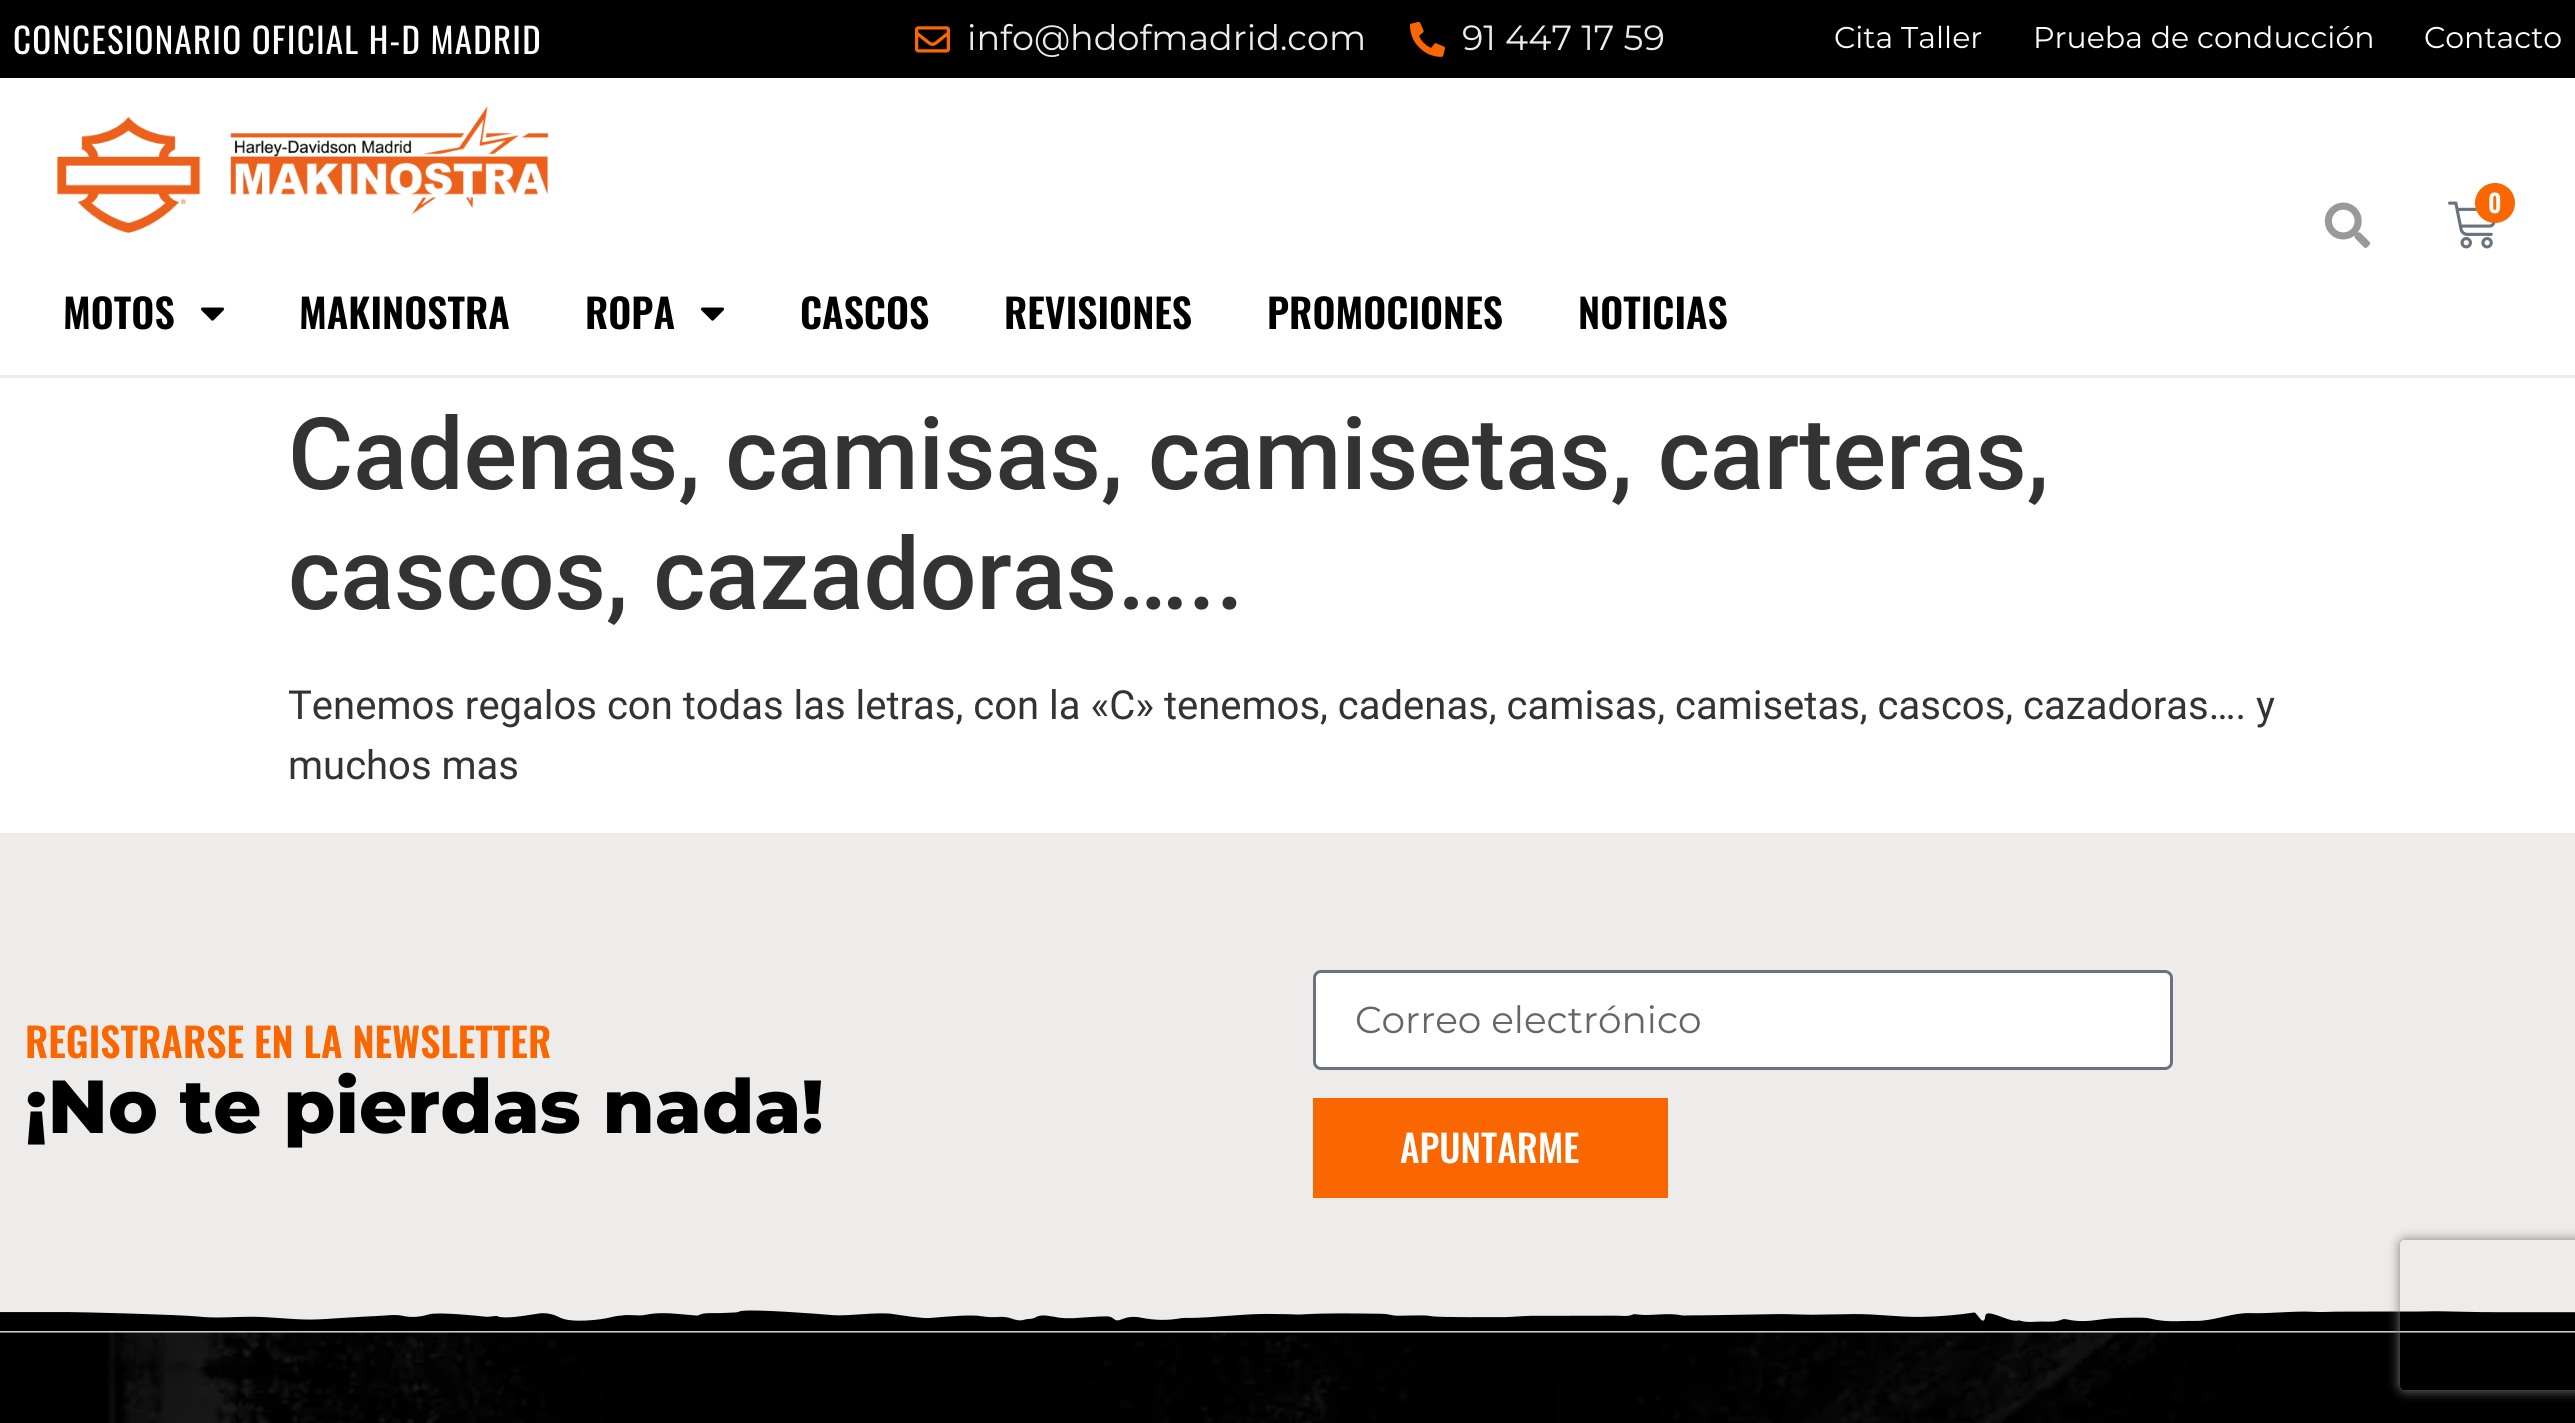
import math
import cairo

surface = cairo.ImageSurface(cairo.FORMAT_RGB24, 2575, 1423)
ctx = cairo.Context(surface)
options = cairo.FontOptions()
options.set_hint_metrics(cairo.HINT_METRICS_OFF)
options.set_hint_style(cairo.HINT_STYLE_NONE)
ctx.set_font_options(options)
ctx.set_miter_limit(4)


def set_color(code):
    ctx.set_source_rgb(*(v / 255 for v in bytes.fromhex(code[-6:])))


def draw_text(x, y, s, family, size, color, bold=False, italic=False):
    ctx.select_font_face(family, cairo.FONT_SLANT_ITALIC if italic else cairo.FONT_SLANT_NORMAL, cairo.FONT_WEIGHT_BOLD if bold else cairo.FONT_WEIGHT_NORMAL)
    ctx.set_font_size(size)
    set_color(color)
    ctx.move_to(x, y)
    ctx.show_text(s)


def draw_spaced(x, y, s, letter, word):
    ctx.move_to(x, y)
    for ch in s:
        ctx.show_text(ch)
        ctx.rel_move_to(letter + word * (ch == ' '), 0)


def fill_rect(x, y, w, h, color):
    set_color(color)
    ctx.rectangle(x, y, w, h)
    ctx.fill()


def rounded_rect(x, y, w, h, r):
    ctx.new_sub_path()
    for i, (u, v) in enumerate([(x + w - r, y + h - r), (x + r, y + h - r), (x + r, y + r), (x + w - r, y + r)]):
        ctx.arc(u, v, r, i * math.pi / 2, (i + 1) * math.pi / 2)
    ctx.close_path()


def draw_shadow(x, y, w, h, r, blur, alpha):
    ctx.push_group_with_content(cairo.CONTENT_ALPHA)
    ctx.set_operator(cairo.OPERATOR_SOURCE)
    for i in range(15, -16, -2):
        e = blur * i / 6
        if min(w, h) + 2 * e > 0:
            ctx.set_source_rgba(0, 0, 0, alpha * math.erfc((i - 1) / 8.5) / 2)
            rounded_rect(x - e, y - e, w + 2 * e, h + 2 * e, max(0, min(r + e + blur * .6, min(w, h) / 2 + e)))
            ctx.fill()
    ctx.mask(ctx.pop_group())


def draw_image(path, x, y, w, h):
    ctx.save()
    ctx.set_source_surface(cairo.ImageSurface.create_from_png(path), x, y)
    ctx.rectangle(x, y, w, h)
    ctx.fill()
    ctx.restore()


set_color("#ffffff")
ctx.paint()
fill_rect(0, 0, 2575, 78, "#000000")
ctx.select_font_face("Oswald")
ctx.set_font_size(35)
set_color("#ffffff")
draw_spaced(13, 54, "CONCESIONARIO OFICIAL H-D MADRID", 1.25, 0)
draw_image("assets/img1.png", 915, 26, 35, 27)
draw_text(967, 50, "info@hdofmadrid.com", "Montserrat", 35, "#eeeceb")
draw_image("assets/img2.png", 1410, 21, 35, 36)
draw_text(1462, 50, "91 447 17 59", "Montserrat", 35, "#eeeceb")
draw_text(1834, 48, "Cita Taller", "Montserrat", 30, "#ffffff")
draw_text(2033, 48, "Prueba de conducción", "Montserrat", 30, "#ffffff")
draw_text(2424, 48, "Contacto", "Montserrat", 30, "#ffffff")
fill_rect(0, 375, 2575, 3, "#eeeceb")
draw_image("assets/img3.png", 2324, 202, 47, 46)
draw_image("assets/img4.png", 2448, 201, 48, 48)
set_color("#fa6600")
ctx.arc(2495, 203, 20, 0, 2 * math.pi)
ctx.fill()
draw_text(2488, 213, "0", "Oswald SemiBold", 25, "#ffffff")
draw_image("assets/img5.png", 57, 106, 492, 127)
draw_text(63, 329, "MOTOS", "Oswald SemiBold", 40, "#000000")
draw_image("assets/img6.png", 200, 307, 25, 14)
draw_text(299, 329, "MAKINOSTRA", "Oswald SemiBold", 40, "#000000")
draw_text(585, 329, "ROPA", "Oswald SemiBold", 40, "#000000")
draw_image("assets/img6.png", 700, 307, 25, 14)
draw_text(800, 329, "CASCOS", "Oswald SemiBold", 40, "#000000")
draw_text(1004, 329, "REVISIONES", "Oswald SemiBold", 40, "#000000")
draw_text(1267, 329, "PROMOCIONES", "Oswald SemiBold", 40, "#000000")
draw_text(1578, 329, "NOTICIAS", "Oswald SemiBold", 40, "#000000")
draw_text(288, 489, "Cadenas, camisas, camisetas, carteras,", "Roboto Medium", 100, "#333333")
draw_text(288, 609, "cascos, cazadoras…..", "Roboto Medium", 100, "#333333")
draw_text(288, 719, "Tenemos regalos con todas las letras, con la «C» tenemos, cadenas, camisas, camisetas, cascos, cazadoras…. y", "Roboto", 40, "#333333")
draw_text(288, 779, "muchos mas", "Roboto", 40, "#333333")
fill_rect(0, 833, 2575, 500, "#eeeceb")
draw_text(25, 1058, "REGISTRARSE EN LA NEWSLETTER", "Oswald SemiBold", 40, "#fa6600")
draw_text(25, 1133, "¡No te pierdas nada!", "Montserrat ExtraBold", 75, "#000000")
set_color("#ffffff")
rounded_rect(1314.5, 971.5, 857, 97, 6.5)
ctx.fill_preserve()
set_color("#69727d")
ctx.set_line_width(3)
ctx.stroke()
draw_text(1355, 1033, "Correo electrónico", "Montserrat", 37.5, "#666666")
fill_rect(1313, 1098, 355, 100, "#fa6600")
draw_text(1400, 1163, "APUNTARME", "Oswald Medium", 37.5, "#ffffff")
draw_image("assets/img7.png", 0, 1310, 2575, 22)
draw_image("assets/img8.png", 0, 1332, 2575, 91)
ctx.save()
ctx.set_fill_rule(cairo.FILL_RULE_EVEN_ODD)
ctx.new_path()
ctx.move_to(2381, 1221)
ctx.line_to(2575, 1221)
ctx.line_to(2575, 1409)
ctx.line_to(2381, 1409)
ctx.close_path()
ctx.move_to(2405, 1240)
ctx.line_to(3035, 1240)
ctx.curve_to(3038, 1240, 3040, 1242, 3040, 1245)
ctx.line_to(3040, 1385)
ctx.curve_to(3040, 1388, 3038, 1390, 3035, 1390)
ctx.line_to(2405, 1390)
ctx.curve_to(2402, 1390, 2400, 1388, 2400, 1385)
ctx.line_to(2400, 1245)
ctx.curve_to(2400, 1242, 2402, 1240, 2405, 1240)
ctx.close_path()
ctx.clip()
set_color("#808080")
draw_shadow(2400, 1240, 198, 150, 5, 6, 1)
ctx.restore()
surface.write_to_png("output.png")
